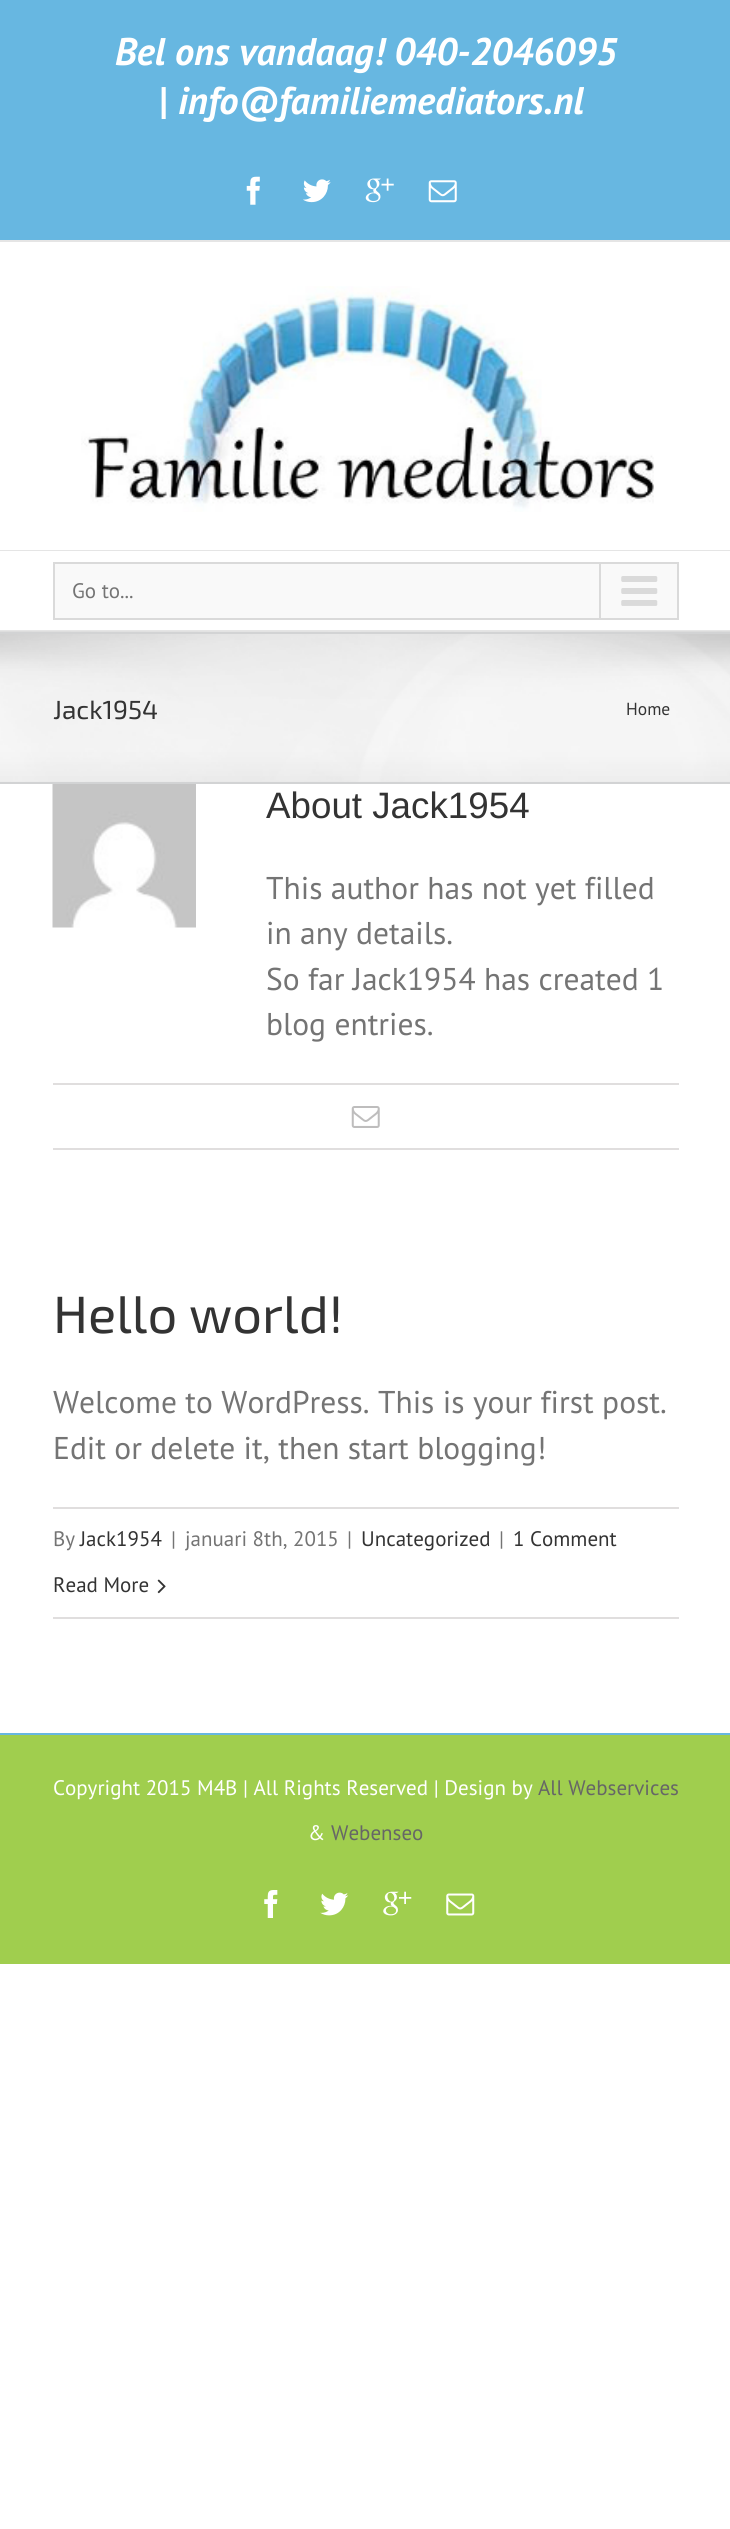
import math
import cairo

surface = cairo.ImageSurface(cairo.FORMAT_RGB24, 730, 2529)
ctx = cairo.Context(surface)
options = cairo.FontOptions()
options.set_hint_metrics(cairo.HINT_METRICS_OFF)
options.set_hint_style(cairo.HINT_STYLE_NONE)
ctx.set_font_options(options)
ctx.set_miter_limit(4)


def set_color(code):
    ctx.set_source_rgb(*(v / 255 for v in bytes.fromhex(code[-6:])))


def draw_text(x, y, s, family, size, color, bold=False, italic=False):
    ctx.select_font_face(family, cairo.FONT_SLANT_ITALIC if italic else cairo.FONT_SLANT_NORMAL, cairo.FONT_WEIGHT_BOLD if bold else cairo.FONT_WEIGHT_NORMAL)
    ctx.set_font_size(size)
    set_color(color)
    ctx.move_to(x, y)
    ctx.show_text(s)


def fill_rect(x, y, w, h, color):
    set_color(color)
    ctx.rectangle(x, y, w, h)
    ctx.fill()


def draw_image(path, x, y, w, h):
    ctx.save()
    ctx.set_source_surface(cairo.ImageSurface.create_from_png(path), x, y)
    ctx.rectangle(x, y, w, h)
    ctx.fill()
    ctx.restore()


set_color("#ffffff")
ctx.paint()
fill_rect(0, 0, 730, 240, "#67b7e1")
fill_rect(0, 240, 730, 2, "#e5e5e5")
draw_text(115, 65, "Bel ons vandaag! 040-2046095", "PT Sans", 38.5, "#ffffff", bold=True, italic=True)
draw_text(158, 114, "|", "PT Sans", 38.5, "#ffffff", bold=True, italic=True)
draw_text(178, 114, "info@familiemediators.nl", "PT Sans", 38.5, "#ffffff", bold=True, italic=True)
draw_image("assets/img1.png", 246, 176, 14, 29)
draw_image("assets/img2.png", 303, 179, 28, 24)
draw_image("assets/img3.png", 365, 178, 29, 25)
draw_image("assets/img4.png", 428, 180, 29, 23)
fill_rect(0, 550, 730, 1, "#e5e5e5")
draw_image("assets/img5.png", 81, 286, 573, 226)
fill_rect(0, 630, 730, 2, "#e5e5e5")
set_color("#f9f9f9")
ctx.rectangle(54, 563, 624, 56)
ctx.fill_preserve()
set_color("#dadada")
ctx.stroke()
draw_text(72, 598, "Go to...", "PT Sans", 21, "#747474")
fill_rect(599, 564, 2, 54, "#dadada")
draw_image("assets/img6.png", 621, 576, 37, 30)
fill_rect(0, 634, 730, 148, "#f6f6f6")
draw_image("assets/img7.png", 0, 631, 730, 151)
fill_rect(0, 632, 730, 2, "#d2d3d4")
fill_rect(0, 782, 730, 2, "#d2d3d4")
draw_text(53, 719, "Jack1954", "Exo 2", 26.25, "#333333")
draw_text(626, 715, "Home", "PT Sans", 17.5, "#333333")
draw_image("assets/img8.png", 52, 784, 144, 144)
draw_text(266, 818, "About Jack1954", "Liberation Sans", 36.75, "#333333")
draw_text(266, 899, "This author has not yet filled", "PT Sans", 31.5, "#747474")
draw_text(266, 944, "in any details.", "PT Sans", 31.5, "#747474")
draw_text(266, 990, "So far Jack1954 has created 1", "PT Sans", 31.5, "#747474")
draw_text(266, 1035, "blog entries.", "PT Sans", 31.5, "#747474")
fill_rect(53, 1083, 626, 2, "#e0dede")
fill_rect(53, 1148, 626, 2, "#e0dede")
draw_image("assets/img9.png", 351, 1106, 29, 22)
draw_text(53, 1333, "Hello world!", "Exo 2", 52.5, "#333333")
draw_text(53, 1413, "Welcome to WordPress. This is your first post.", "PT Sans", 31.5, "#747474")
draw_text(53, 1459, "Edit or delete it, then start blogging!", "PT Sans", 31.5, "#747474")
fill_rect(53, 1507, 626, 2, "#e0dede")
fill_rect(53, 1617, 626, 2, "#e0dede")
draw_text(53, 1546, "By", "PT Sans", 21, "#747474")
draw_text(80, 1546, "Jack1954", "PT Sans", 21, "#333333")
draw_text(171, 1546, "|", "PT Sans", 21, "#747474")
draw_text(185, 1546, "januari 8th, 2015", "PT Sans", 21, "#747474")
draw_text(347, 1546, "|", "PT Sans", 21, "#747474")
draw_text(361, 1546, "Uncategorized", "PT Sans", 21, "#333333")
draw_text(499, 1546, "|", "PT Sans", 21, "#747474")
draw_text(513, 1546, "1 Comment", "PT Sans", 21, "#333333")
draw_text(53, 1592, "Read More", "PT Sans", 21, "#333333")
draw_image("assets/img10.png", 157, 1579, 9, 15)
fill_rect(0, 1735, 730, 229, "#a0ce4e")
fill_rect(0, 1733, 730, 2, "#67b7e1")
draw_text(53, 1795, "Copyright 2015 M4B | All Rights Reserved | Design by", "PT Sans", 21, "#ffffff")
draw_text(538, 1795, "All Webservices", "PT Sans", 21, "#666666")
draw_text(308, 1840, "&", "PT Sans", 21, "#ffffff")
draw_text(331, 1840, "Webenseo", "PT Sans", 21, "#666666")
draw_image("assets/img11.png", 264, 1890, 14, 28)
draw_image("assets/img12.png", 320, 1892, 29, 24)
draw_image("assets/img13.png", 383, 1891, 29, 25)
draw_image("assets/img14.png", 446, 1893, 29, 23)
surface.write_to_png("output.png")
